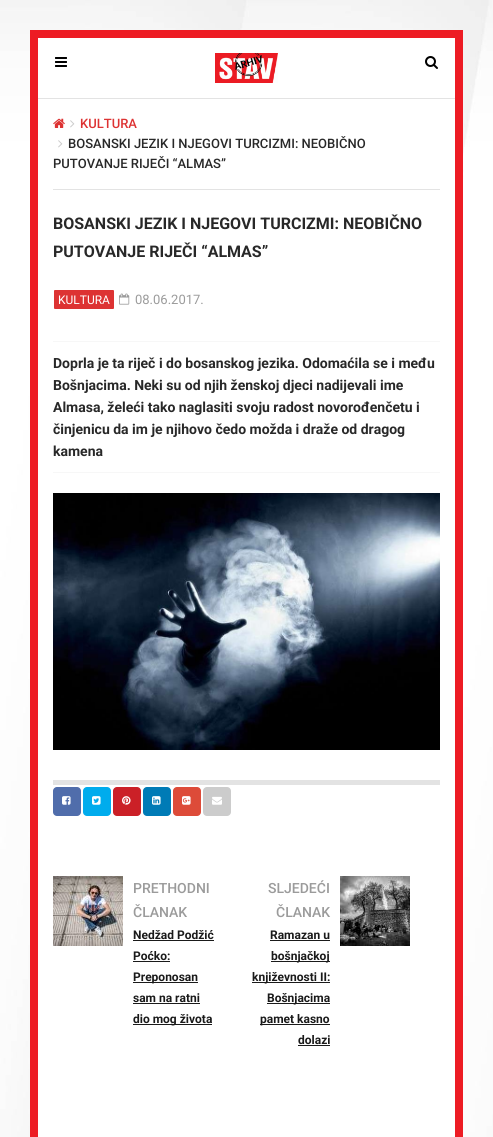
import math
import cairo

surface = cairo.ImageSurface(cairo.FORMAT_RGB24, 493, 1137)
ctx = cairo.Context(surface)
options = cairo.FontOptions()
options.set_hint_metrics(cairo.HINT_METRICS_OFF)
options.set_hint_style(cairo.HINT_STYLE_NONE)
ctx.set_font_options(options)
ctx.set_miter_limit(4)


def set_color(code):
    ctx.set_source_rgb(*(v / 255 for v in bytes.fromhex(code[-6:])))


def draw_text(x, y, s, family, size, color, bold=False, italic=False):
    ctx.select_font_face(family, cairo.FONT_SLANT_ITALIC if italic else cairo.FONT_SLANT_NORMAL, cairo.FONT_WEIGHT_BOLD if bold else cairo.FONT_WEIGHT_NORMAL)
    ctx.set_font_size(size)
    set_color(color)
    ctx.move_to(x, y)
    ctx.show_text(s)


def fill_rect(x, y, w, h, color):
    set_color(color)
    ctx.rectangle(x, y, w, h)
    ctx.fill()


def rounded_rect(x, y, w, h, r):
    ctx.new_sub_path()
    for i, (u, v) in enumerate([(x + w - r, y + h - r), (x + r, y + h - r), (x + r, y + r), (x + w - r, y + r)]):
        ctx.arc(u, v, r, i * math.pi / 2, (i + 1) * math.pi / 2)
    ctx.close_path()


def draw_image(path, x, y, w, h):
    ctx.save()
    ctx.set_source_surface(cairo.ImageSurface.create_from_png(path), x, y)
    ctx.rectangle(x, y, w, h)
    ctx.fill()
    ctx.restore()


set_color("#ffffff")
ctx.paint()
draw_image("assets/img1.png", 0, 0, 493, 1137)
set_color("#ffffff")
ctx.rectangle(34, 34, 425, 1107)
ctx.fill_preserve()
set_color("#ed1c24")
ctx.set_line_width(8)
ctx.stroke()
fill_rect(38, 98, 417, 1, "#e3e3e3")
draw_image("assets/img2.png", 55, 57, 12, 10)
draw_image("assets/img3.png", 215, 53, 63, 30)
draw_image("assets/img4.png", 425, 56, 13, 13)
fill_rect(53, 189, 387, 1, "#e3e3e3")
draw_image("assets/img5.png", 53, 118, 12, 10)
draw_image("assets/img6.png", 70, 120, 5, 8)
draw_text(80, 128, "KULTURA", "Roboto Medium", 13, "#dd3333")
draw_image("assets/img6.png", 58, 140, 5, 8)
draw_text(68, 148, "BOSANSKI JEZIK I NJEGOVI TURCIZMI: NEOBIČNO", "Roboto Medium", 13, "#282828")
draw_text(53, 168, "PUTOVANJE RIJEČI “ALMAS”", "Roboto Medium", 13, "#282828")
draw_text(53, 229, "BOSANSKI JEZIK I NJEGOVI TURCIZMI: NEOBIČNO", "Roboto", 16, "#282828", bold=True)
draw_text(53, 257, "PUTOVANJE RIJEČI “ALMAS”", "Roboto", 16, "#282828", bold=True)
set_color("#dd3333")
rounded_rect(54, 290, 60, 19, 1)
ctx.fill()
draw_text(58, 304, "KULTURA", "Roboto", 12, "#ffffff")
draw_image("assets/img7.png", 119, 293, 11, 12)
draw_text(135, 304, "08.06.2017.", "Roboto", 13, "#9b9b9b")
fill_rect(53, 341, 387, 1, "#f7f7f7")
fill_rect(53, 472, 387, 1, "#f7f7f7")
draw_text(53, 368, "Doprla je ta riječ i do bosanskog jezika. Odomaćila se i među", "Roboto", 14, "#282828", bold=True)
draw_text(53, 390, "Bošnjacima. Neki su od njih ženskoj djeci nadijevali ime", "Roboto", 14, "#282828", bold=True)
draw_text(53, 412, "Almasa, želeći tako naglasiti svoju radost novorođenčetu i", "Roboto", 14, "#282828", bold=True)
draw_text(53, 434, "činjenicu da im je njihovo čedo možda i draže od dragog", "Roboto", 14, "#282828", bold=True)
draw_text(53, 456, "kamena", "Roboto", 14, "#282828", bold=True)
draw_image("assets/img8.png", 53, 493, 387, 257)
set_color("#506dab")
rounded_rect(53, 787, 28, 29, 4)
ctx.fill()
draw_image("assets/img9.png", 62, 796, 9, 9)
set_color("#00aced")
rounded_rect(83, 787, 28, 29, 4)
ctx.fill()
draw_image("assets/img10.png", 92, 796, 9, 9)
set_color("#cb2027")
rounded_rect(113, 787, 28, 29, 4)
ctx.fill()
draw_image("assets/img11.png", 122, 796, 9, 9)
set_color("#007bb6")
rounded_rect(143, 787, 28, 29, 4)
ctx.fill()
draw_image("assets/img12.png", 152, 796, 9, 9)
set_color("#dd4b39")
rounded_rect(173, 787, 28, 29, 4)
ctx.fill()
draw_image("assets/img13.png", 182, 796, 9, 9)
set_color("#cccccc")
rounded_rect(203, 787, 28, 29, 4)
ctx.fill()
draw_image("assets/img14.png", 212, 796, 10, 9)
draw_image("assets/img15.png", 53, 876, 70, 70)
draw_text(133, 893, "PRETHODNI", "Roboto Medium", 14, "#9b9b9b")
draw_text(133, 917, "ČLANAK", "Roboto Medium", 14, "#9b9b9b")
draw_text(133, 939, "Nedžad Podžić", "Roboto", 12, "#1a1a1a", bold=True)
fill_rect(133, 940, 81, 1, "#1a1a1a")
draw_text(133, 960, "Poćko:", "Roboto", 12, "#1a1a1a", bold=True)
fill_rect(133, 961, 37, 1, "#1a1a1a")
fill_rect(133, 982, 65, 1, "#1a1a1a")
draw_text(133, 981, "Preponosan", "Roboto", 12, "#1a1a1a", bold=True)
draw_text(133, 1002, "sam na ratni", "Roboto", 12, "#1a1a1a", bold=True)
fill_rect(133, 1003, 67, 1, "#1a1a1a")
fill_rect(133, 1024, 79, 1, "#1a1a1a")
draw_text(133, 1023, "dio mog života", "Roboto", 12, "#1a1a1a", bold=True)
draw_text(268, 893, "SLJEDEĆI", "Roboto Medium", 14, "#9b9b9b")
draw_text(276, 917, "ČLANAK", "Roboto Medium", 14, "#9b9b9b")
draw_text(270, 939, "Ramazan u", "Roboto", 12, "#1a1a1a", bold=True)
fill_rect(270, 940, 60, 1, "#1a1a1a")
fill_rect(271, 961, 59, 1, "#1a1a1a")
draw_text(271, 960, "bošnjačkoj", "Roboto", 12, "#1a1a1a", bold=True)
fill_rect(252, 982, 78, 1, "#1a1a1a")
draw_text(252, 981, "književnosti II:", "Roboto", 12, "#1a1a1a", bold=True)
fill_rect(267, 1003, 63, 1, "#1a1a1a")
draw_text(267, 1002, "Bošnjacima", "Roboto", 12, "#1a1a1a", bold=True)
fill_rect(260, 1024, 70, 1, "#1a1a1a")
draw_text(260, 1023, "pamet kasno", "Roboto", 12, "#1a1a1a", bold=True)
draw_text(298, 1044, "dolazi", "Roboto", 12, "#1a1a1a", bold=True)
fill_rect(298, 1045, 32, 1, "#1a1a1a")
draw_image("assets/img16.png", 340, 876, 70, 70)
fill_rect(53, 780, 387, 5, "#e3e3e3")
surface.write_to_png("output.png")
